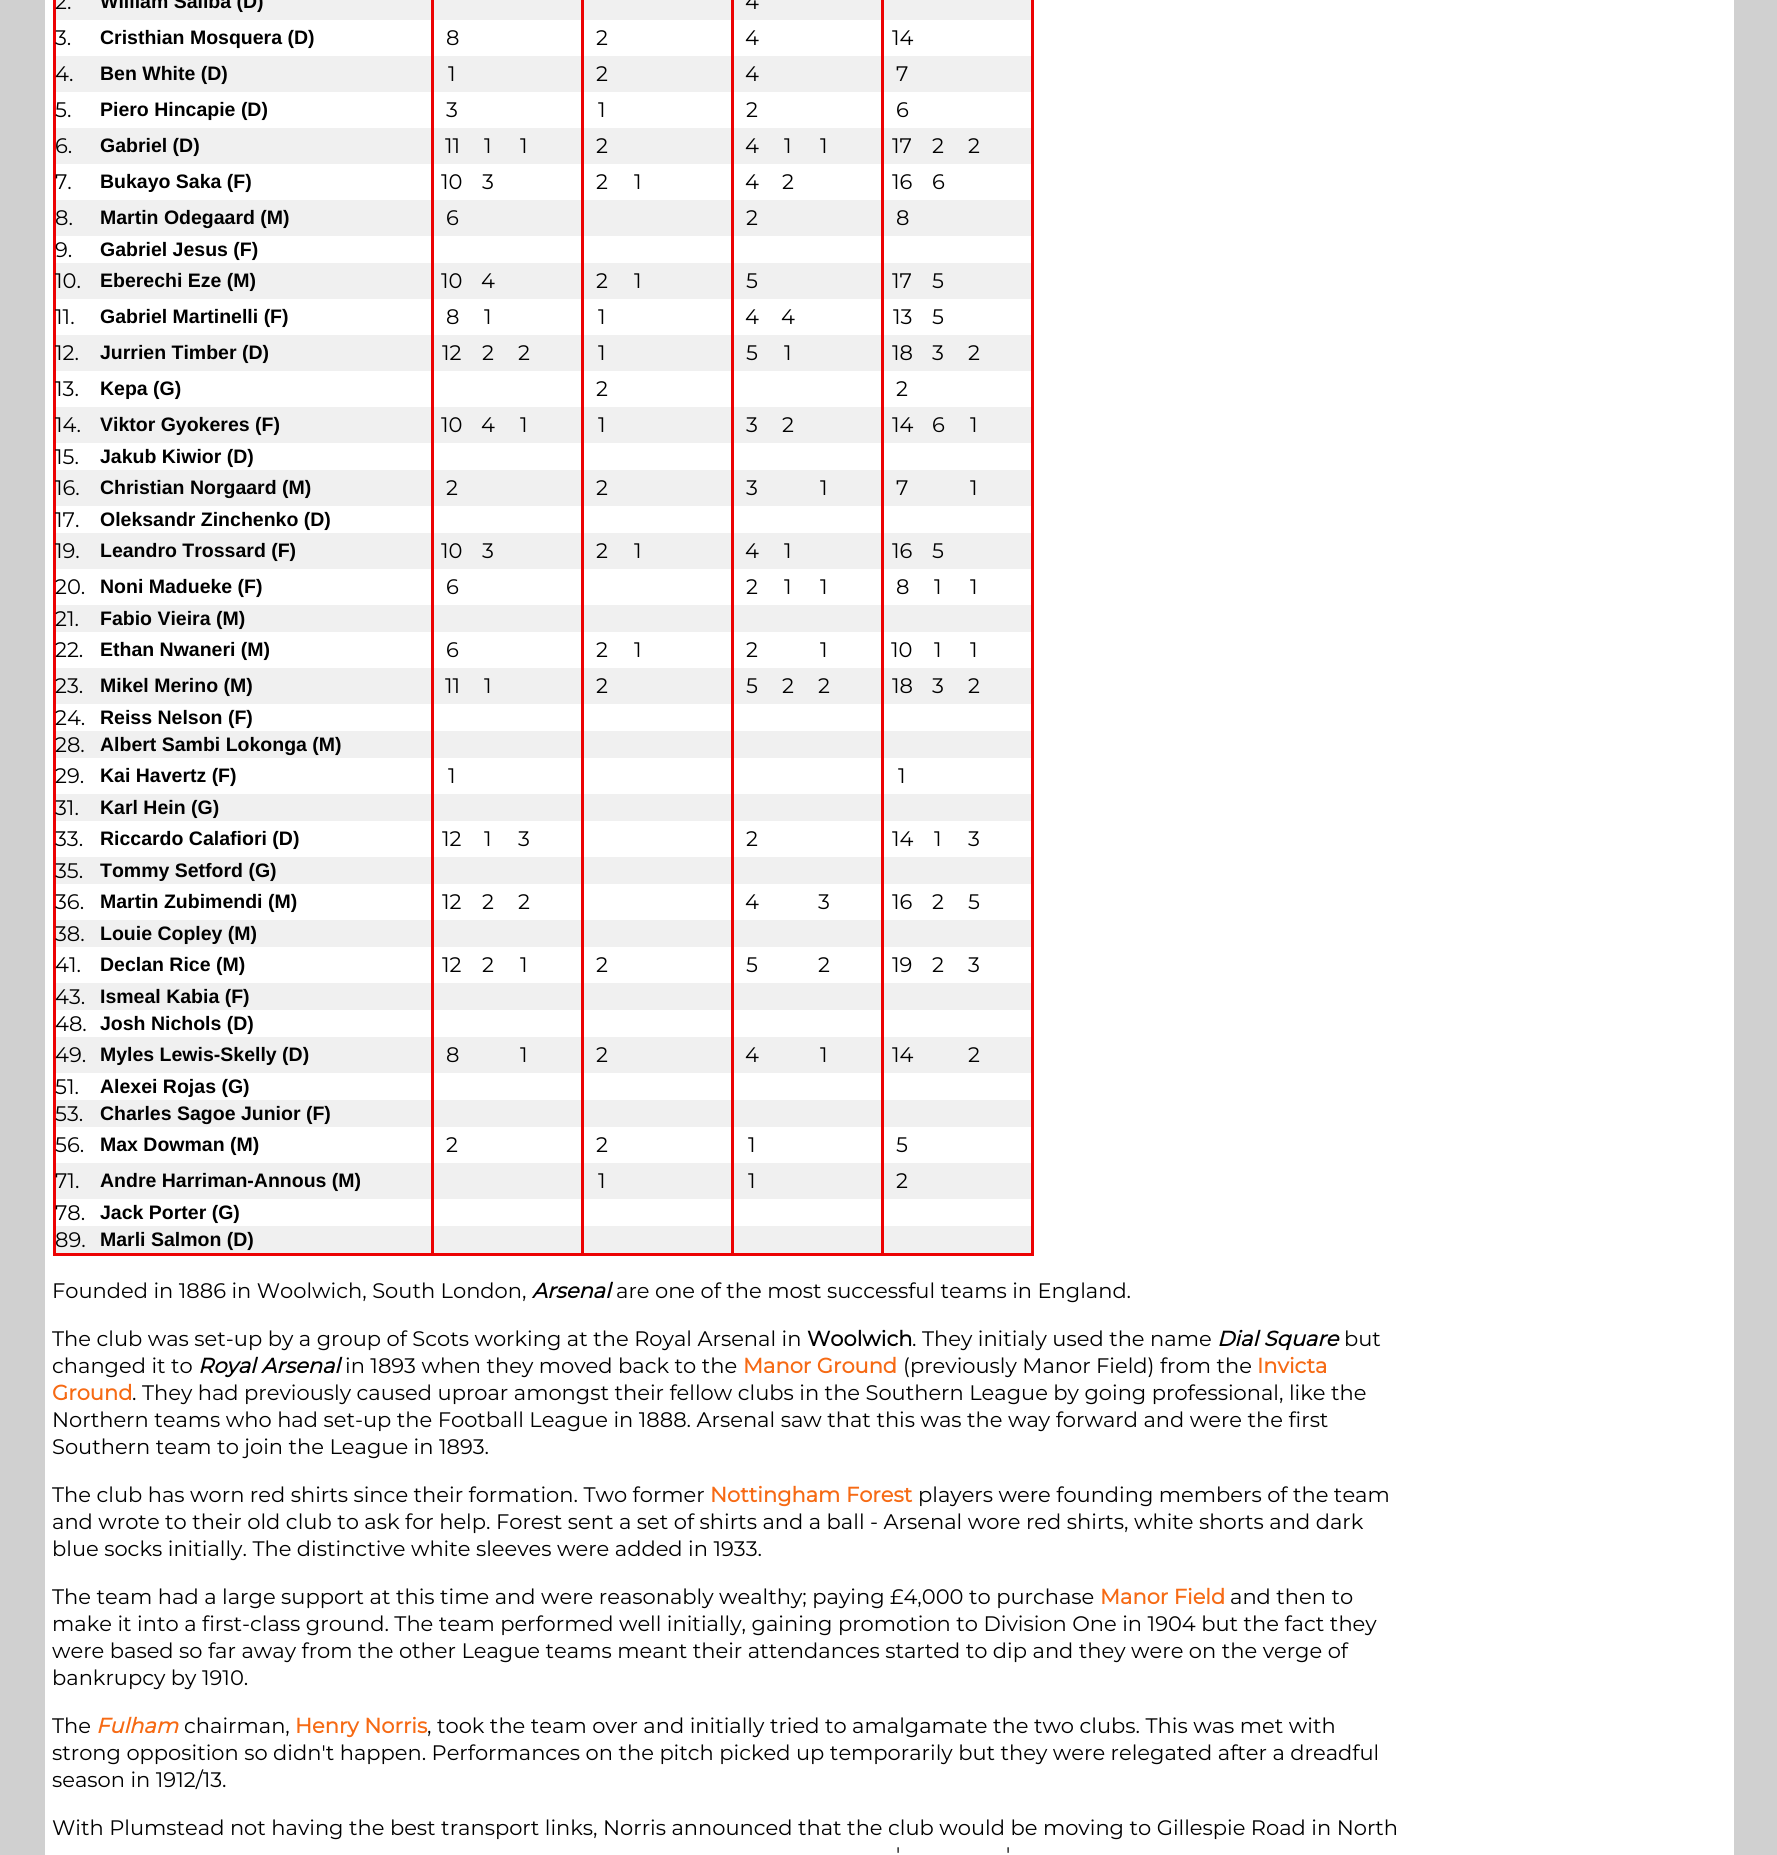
import math
import cairo

surface = cairo.ImageSurface(cairo.FORMAT_RGB24, 1777, 1855)
ctx = cairo.Context(surface)
options = cairo.FontOptions()
options.set_hint_metrics(cairo.HINT_METRICS_OFF)
options.set_hint_style(cairo.HINT_STYLE_NONE)
ctx.set_font_options(options)
ctx.set_miter_limit(4)


def set_color(code):
    ctx.set_source_rgb(*(v / 255 for v in bytes.fromhex(code[-6:])))


def draw_text(x, y, s, family, size, color, bold=False, italic=False):
    ctx.select_font_face(family, cairo.FONT_SLANT_ITALIC if italic else cairo.FONT_SLANT_NORMAL, cairo.FONT_WEIGHT_BOLD if bold else cairo.FONT_WEIGHT_NORMAL)
    ctx.set_font_size(size)
    set_color(color)
    ctx.move_to(x, y)
    ctx.show_text(s)


def fill_rect(x, y, w, h, color):
    set_color(color)
    ctx.rectangle(x, y, w, h)
    ctx.fill()


set_color("#d0d0d0")
ctx.paint()
fill_rect(45, 0, 1689, 1855, "#ffffff")
fill_rect(56, 0, 975, 20, "#f0f0f0")
fill_rect(53, 0, 3, 1253, "#ec0203")
draw_text(55, 9, "2.", "Montserrat Thin", 21, "#000000")
draw_text(100, 8, "William Saliba (D)", "Liberation Sans", 19.5, "#000000", bold=True)
fill_rect(431, 0, 3, 56, "#ec0203")
fill_rect(581, 0, 3, 56, "#ec0203")
fill_rect(731, 0, 3, 56, "#ec0203")
draw_text(745, 9, "4", "Montserrat Thin", 21, "#000000")
fill_rect(881, 0, 3, 56, "#ec0203")
fill_rect(1031, 0, 3, 1253, "#ec0203")
draw_text(55, 45, "3.", "Montserrat Thin", 21, "#000000")
draw_text(100, 44, "Cristhian Mosquera (D)", "Liberation Sans", 19.5, "#000000", bold=True)
draw_text(446, 45, "8", "Montserrat Thin", 21, "#000000")
draw_text(596, 45, "2", "Montserrat Thin", 21, "#000000")
draw_text(745, 45, "4", "Montserrat Thin", 21, "#000000")
draw_text(892, 45, "14", "Montserrat Thin", 21, "#000000")
fill_rect(56, 56, 975, 36, "#f0f0f0")
draw_text(55, 81, "4.", "Montserrat Thin", 21, "#000000")
draw_text(100, 80, "Ben White (D)", "Liberation Sans", 19.5, "#000000", bold=True)
fill_rect(431, 56, 3, 72, "#ec0203")
draw_text(448, 81, "1", "Montserrat Thin", 21, "#000000")
fill_rect(581, 56, 3, 72, "#ec0203")
draw_text(596, 81, "2", "Montserrat Thin", 21, "#000000")
fill_rect(731, 56, 3, 72, "#ec0203")
draw_text(745, 81, "4", "Montserrat Thin", 21, "#000000")
fill_rect(881, 56, 3, 72, "#ec0203")
draw_text(896, 81, "7", "Montserrat Thin", 21, "#000000")
draw_text(55, 117, "5.", "Montserrat Thin", 21, "#000000")
draw_text(100, 116, "Piero Hincapie (D)", "Liberation Sans", 19.5, "#000000", bold=True)
draw_text(446, 117, "3", "Montserrat Thin", 21, "#000000")
draw_text(598, 117, "1", "Montserrat Thin", 21, "#000000")
draw_text(746, 117, "2", "Montserrat Thin", 21, "#000000")
draw_text(896, 117, "6", "Montserrat Thin", 21, "#000000")
fill_rect(56, 128, 975, 36, "#f0f0f0")
draw_text(55, 153, "6.", "Montserrat Thin", 21, "#000000")
draw_text(100, 152, "Gabriel (D)", "Liberation Sans", 19.5, "#000000", bold=True)
fill_rect(431, 128, 3, 72, "#ec0203")
draw_text(445, 153, "11", "Montserrat Thin", 21, "#000000")
draw_text(484, 153, "1", "Montserrat Thin", 21, "#000000")
draw_text(520, 153, "1", "Montserrat Thin", 21, "#000000")
fill_rect(581, 128, 3, 72, "#ec0203")
draw_text(596, 153, "2", "Montserrat Thin", 21, "#000000")
fill_rect(731, 128, 3, 72, "#ec0203")
draw_text(745, 153, "4", "Montserrat Thin", 21, "#000000")
draw_text(784, 153, "1", "Montserrat Thin", 21, "#000000")
draw_text(820, 153, "1", "Montserrat Thin", 21, "#000000")
fill_rect(881, 128, 3, 72, "#ec0203")
draw_text(892, 153, "17", "Montserrat Thin", 21, "#000000")
draw_text(932, 153, "2", "Montserrat Thin", 21, "#000000")
draw_text(968, 153, "2", "Montserrat Thin", 21, "#000000")
draw_text(55, 189, "7.", "Montserrat Thin", 21, "#000000")
draw_text(100, 188, "Bukayo Saka (F)", "Liberation Sans", 19.5, "#000000", bold=True)
draw_text(441, 189, "10", "Montserrat Thin", 21, "#000000")
draw_text(482, 189, "3", "Montserrat Thin", 21, "#000000")
draw_text(596, 189, "2", "Montserrat Thin", 21, "#000000")
draw_text(634, 189, "1", "Montserrat Thin", 21, "#000000")
draw_text(745, 189, "4", "Montserrat Thin", 21, "#000000")
draw_text(782, 189, "2", "Montserrat Thin", 21, "#000000")
draw_text(892, 189, "16", "Montserrat Thin", 21, "#000000")
draw_text(932, 189, "6", "Montserrat Thin", 21, "#000000")
fill_rect(56, 200, 975, 36, "#f0f0f0")
draw_text(55, 225, "8.", "Montserrat Thin", 21, "#000000")
draw_text(100, 224, "Martin Odegaard (M)", "Liberation Sans", 19.5, "#000000", bold=True)
fill_rect(431, 200, 3, 63, "#ec0203")
draw_text(446, 225, "6", "Montserrat Thin", 21, "#000000")
fill_rect(581, 200, 3, 63, "#ec0203")
fill_rect(731, 200, 3, 63, "#ec0203")
draw_text(746, 225, "2", "Montserrat Thin", 21, "#000000")
fill_rect(881, 200, 3, 63, "#ec0203")
draw_text(896, 225, "8", "Montserrat Thin", 21, "#000000")
draw_text(55, 257, "9.", "Montserrat Thin", 21, "#000000")
draw_text(100, 256, "Gabriel Jesus (F)", "Liberation Sans", 19.5, "#000000", bold=True)
fill_rect(56, 263, 975, 36, "#f0f0f0")
draw_text(55, 288, "10.", "Montserrat Thin", 21, "#000000")
draw_text(100, 287, "Eberechi Eze (M)", "Liberation Sans", 19.5, "#000000", bold=True)
fill_rect(431, 263, 3, 72, "#ec0203")
draw_text(441, 288, "10", "Montserrat Thin", 21, "#000000")
draw_text(481, 288, "4", "Montserrat Thin", 21, "#000000")
fill_rect(581, 263, 3, 72, "#ec0203")
draw_text(596, 288, "2", "Montserrat Thin", 21, "#000000")
draw_text(634, 288, "1", "Montserrat Thin", 21, "#000000")
fill_rect(731, 263, 3, 72, "#ec0203")
draw_text(746, 288, "5", "Montserrat Thin", 21, "#000000")
fill_rect(881, 263, 3, 72, "#ec0203")
draw_text(892, 288, "17", "Montserrat Thin", 21, "#000000")
draw_text(932, 288, "5", "Montserrat Thin", 21, "#000000")
draw_text(55, 324, "11.", "Montserrat Thin", 21, "#000000")
draw_text(100, 323, "Gabriel Martinelli (F)", "Liberation Sans", 19.5, "#000000", bold=True)
draw_text(446, 324, "8", "Montserrat Thin", 21, "#000000")
draw_text(484, 324, "1", "Montserrat Thin", 21, "#000000")
draw_text(598, 324, "1", "Montserrat Thin", 21, "#000000")
draw_text(745, 324, "4", "Montserrat Thin", 21, "#000000")
draw_text(781, 324, "4", "Montserrat Thin", 21, "#000000")
draw_text(893, 324, "13", "Montserrat Thin", 21, "#000000")
draw_text(932, 324, "5", "Montserrat Thin", 21, "#000000")
fill_rect(56, 335, 975, 36, "#f0f0f0")
draw_text(55, 360, "12.", "Montserrat Thin", 21, "#000000")
draw_text(100, 359, "Jurrien Timber (D)", "Liberation Sans", 19.5, "#000000", bold=True)
fill_rect(431, 335, 3, 72, "#ec0203")
draw_text(442, 360, "12", "Montserrat Thin", 21, "#000000")
draw_text(482, 360, "2", "Montserrat Thin", 21, "#000000")
draw_text(518, 360, "2", "Montserrat Thin", 21, "#000000")
fill_rect(581, 335, 3, 72, "#ec0203")
draw_text(598, 360, "1", "Montserrat Thin", 21, "#000000")
fill_rect(731, 335, 3, 72, "#ec0203")
draw_text(746, 360, "5", "Montserrat Thin", 21, "#000000")
draw_text(784, 360, "1", "Montserrat Thin", 21, "#000000")
fill_rect(881, 335, 3, 72, "#ec0203")
draw_text(892, 360, "18", "Montserrat Thin", 21, "#000000")
draw_text(932, 360, "3", "Montserrat Thin", 21, "#000000")
draw_text(968, 360, "2", "Montserrat Thin", 21, "#000000")
draw_text(55, 396, "13.", "Montserrat Thin", 21, "#000000")
draw_text(100, 395, "Kepa (G)", "Liberation Sans", 19.5, "#000000", bold=True)
draw_text(596, 396, "2", "Montserrat Thin", 21, "#000000")
draw_text(896, 396, "2", "Montserrat Thin", 21, "#000000")
fill_rect(56, 407, 975, 36, "#f0f0f0")
draw_text(55, 432, "14.", "Montserrat Thin", 21, "#000000")
draw_text(100, 431, "Viktor Gyokeres (F)", "Liberation Sans", 19.5, "#000000", bold=True)
fill_rect(431, 407, 3, 63, "#ec0203")
draw_text(441, 432, "10", "Montserrat Thin", 21, "#000000")
draw_text(481, 432, "4", "Montserrat Thin", 21, "#000000")
draw_text(520, 432, "1", "Montserrat Thin", 21, "#000000")
fill_rect(581, 407, 3, 63, "#ec0203")
draw_text(598, 432, "1", "Montserrat Thin", 21, "#000000")
fill_rect(731, 407, 3, 63, "#ec0203")
draw_text(746, 432, "3", "Montserrat Thin", 21, "#000000")
draw_text(782, 432, "2", "Montserrat Thin", 21, "#000000")
fill_rect(881, 407, 3, 63, "#ec0203")
draw_text(892, 432, "14", "Montserrat Thin", 21, "#000000")
draw_text(932, 432, "6", "Montserrat Thin", 21, "#000000")
draw_text(970, 432, "1", "Montserrat Thin", 21, "#000000")
draw_text(55, 464, "15.", "Montserrat Thin", 21, "#000000")
draw_text(100, 463, "Jakub Kiwior (D)", "Liberation Sans", 19.5, "#000000", bold=True)
fill_rect(56, 470, 975, 36, "#f0f0f0")
draw_text(55, 495, "16.", "Montserrat Thin", 21, "#000000")
draw_text(100, 494, "Christian Norgaard (M)", "Liberation Sans", 19.5, "#000000", bold=True)
fill_rect(431, 470, 3, 63, "#ec0203")
draw_text(446, 495, "2", "Montserrat Thin", 21, "#000000")
fill_rect(581, 470, 3, 63, "#ec0203")
draw_text(596, 495, "2", "Montserrat Thin", 21, "#000000")
fill_rect(731, 470, 3, 63, "#ec0203")
draw_text(746, 495, "3", "Montserrat Thin", 21, "#000000")
draw_text(820, 495, "1", "Montserrat Thin", 21, "#000000")
fill_rect(881, 470, 3, 63, "#ec0203")
draw_text(896, 495, "7", "Montserrat Thin", 21, "#000000")
draw_text(970, 495, "1", "Montserrat Thin", 21, "#000000")
draw_text(55, 527, "17.", "Montserrat Thin", 21, "#000000")
draw_text(100, 526, "Oleksandr Zinchenko (D)", "Liberation Sans", 19.5, "#000000", bold=True)
fill_rect(56, 533, 975, 36, "#f0f0f0")
draw_text(55, 558, "19.", "Montserrat Thin", 21, "#000000")
draw_text(100, 557, "Leandro Trossard (F)", "Liberation Sans", 19.5, "#000000", bold=True)
fill_rect(431, 533, 3, 72, "#ec0203")
draw_text(441, 558, "10", "Montserrat Thin", 21, "#000000")
draw_text(482, 558, "3", "Montserrat Thin", 21, "#000000")
fill_rect(581, 533, 3, 72, "#ec0203")
draw_text(596, 558, "2", "Montserrat Thin", 21, "#000000")
draw_text(634, 558, "1", "Montserrat Thin", 21, "#000000")
fill_rect(731, 533, 3, 72, "#ec0203")
draw_text(745, 558, "4", "Montserrat Thin", 21, "#000000")
draw_text(784, 558, "1", "Montserrat Thin", 21, "#000000")
fill_rect(881, 533, 3, 72, "#ec0203")
draw_text(892, 558, "16", "Montserrat Thin", 21, "#000000")
draw_text(932, 558, "5", "Montserrat Thin", 21, "#000000")
draw_text(55, 594, "20.", "Montserrat Thin", 21, "#000000")
draw_text(100, 593, "Noni Madueke (F)", "Liberation Sans", 19.5, "#000000", bold=True)
draw_text(446, 594, "6", "Montserrat Thin", 21, "#000000")
draw_text(746, 594, "2", "Montserrat Thin", 21, "#000000")
draw_text(784, 594, "1", "Montserrat Thin", 21, "#000000")
draw_text(820, 594, "1", "Montserrat Thin", 21, "#000000")
draw_text(896, 594, "8", "Montserrat Thin", 21, "#000000")
draw_text(934, 594, "1", "Montserrat Thin", 21, "#000000")
draw_text(970, 594, "1", "Montserrat Thin", 21, "#000000")
fill_rect(56, 605, 975, 27, "#f0f0f0")
draw_text(55, 626, "21.", "Montserrat Thin", 21, "#000000")
draw_text(100, 625, "Fabio Vieira (M)", "Liberation Sans", 19.5, "#000000", bold=True)
fill_rect(431, 605, 3, 63, "#ec0203")
fill_rect(581, 605, 3, 63, "#ec0203")
fill_rect(731, 605, 3, 63, "#ec0203")
fill_rect(881, 605, 3, 63, "#ec0203")
draw_text(55, 657, "22.", "Montserrat Thin", 21, "#000000")
draw_text(100, 656, "Ethan Nwaneri (M)", "Liberation Sans", 19.5, "#000000", bold=True)
draw_text(446, 657, "6", "Montserrat Thin", 21, "#000000")
draw_text(596, 657, "2", "Montserrat Thin", 21, "#000000")
draw_text(634, 657, "1", "Montserrat Thin", 21, "#000000")
draw_text(746, 657, "2", "Montserrat Thin", 21, "#000000")
draw_text(820, 657, "1", "Montserrat Thin", 21, "#000000")
draw_text(891, 657, "10", "Montserrat Thin", 21, "#000000")
draw_text(934, 657, "1", "Montserrat Thin", 21, "#000000")
draw_text(970, 657, "1", "Montserrat Thin", 21, "#000000")
fill_rect(56, 668, 975, 36, "#f0f0f0")
draw_text(55, 693, "23.", "Montserrat Thin", 21, "#000000")
draw_text(100, 692, "Mikel Merino (M)", "Liberation Sans", 19.5, "#000000", bold=True)
fill_rect(431, 668, 3, 63, "#ec0203")
draw_text(445, 693, "11", "Montserrat Thin", 21, "#000000")
draw_text(484, 693, "1", "Montserrat Thin", 21, "#000000")
fill_rect(581, 668, 3, 63, "#ec0203")
draw_text(596, 693, "2", "Montserrat Thin", 21, "#000000")
fill_rect(731, 668, 3, 63, "#ec0203")
draw_text(746, 693, "5", "Montserrat Thin", 21, "#000000")
draw_text(782, 693, "2", "Montserrat Thin", 21, "#000000")
draw_text(818, 693, "2", "Montserrat Thin", 21, "#000000")
fill_rect(881, 668, 3, 63, "#ec0203")
draw_text(892, 693, "18", "Montserrat Thin", 21, "#000000")
draw_text(932, 693, "3", "Montserrat Thin", 21, "#000000")
draw_text(968, 693, "2", "Montserrat Thin", 21, "#000000")
draw_text(55, 725, "24.", "Montserrat Thin", 21, "#000000")
draw_text(100, 724, "Reiss Nelson (F)", "Liberation Sans", 19.5, "#000000", bold=True)
fill_rect(56, 731, 975, 27, "#f0f0f0")
draw_text(55, 752, "28.", "Montserrat Thin", 21, "#000000")
draw_text(100, 751, "Albert Sambi Lokonga (M)", "Liberation Sans", 19.5, "#000000", bold=True)
fill_rect(431, 731, 3, 63, "#ec0203")
fill_rect(581, 731, 3, 63, "#ec0203")
fill_rect(731, 731, 3, 63, "#ec0203")
fill_rect(881, 731, 3, 63, "#ec0203")
draw_text(55, 783, "29.", "Montserrat Thin", 21, "#000000")
draw_text(100, 782, "Kai Havertz (F)", "Liberation Sans", 19.5, "#000000", bold=True)
draw_text(448, 783, "1", "Montserrat Thin", 21, "#000000")
draw_text(898, 783, "1", "Montserrat Thin", 21, "#000000")
fill_rect(56, 794, 975, 27, "#f0f0f0")
draw_text(55, 815, "31.", "Montserrat Thin", 21, "#000000")
draw_text(100, 814, "Karl Hein (G)", "Liberation Sans", 19.5, "#000000", bold=True)
fill_rect(431, 794, 3, 63, "#ec0203")
fill_rect(581, 794, 3, 63, "#ec0203")
fill_rect(731, 794, 3, 63, "#ec0203")
fill_rect(881, 794, 3, 63, "#ec0203")
draw_text(55, 846, "33.", "Montserrat Thin", 21, "#000000")
draw_text(100, 845, "Riccardo Calafiori (D)", "Liberation Sans", 19.5, "#000000", bold=True)
draw_text(442, 846, "12", "Montserrat Thin", 21, "#000000")
draw_text(484, 846, "1", "Montserrat Thin", 21, "#000000")
draw_text(518, 846, "3", "Montserrat Thin", 21, "#000000")
draw_text(746, 846, "2", "Montserrat Thin", 21, "#000000")
draw_text(892, 846, "14", "Montserrat Thin", 21, "#000000")
draw_text(934, 846, "1", "Montserrat Thin", 21, "#000000")
draw_text(968, 846, "3", "Montserrat Thin", 21, "#000000")
fill_rect(56, 857, 975, 27, "#f0f0f0")
draw_text(55, 878, "35.", "Montserrat Thin", 21, "#000000")
draw_text(100, 877, "Tommy Setford (G)", "Liberation Sans", 19.5, "#000000", bold=True)
fill_rect(431, 857, 3, 63, "#ec0203")
fill_rect(581, 857, 3, 63, "#ec0203")
fill_rect(731, 857, 3, 63, "#ec0203")
fill_rect(881, 857, 3, 63, "#ec0203")
draw_text(55, 909, "36.", "Montserrat Thin", 21, "#000000")
draw_text(100, 908, "Martin Zubimendi (M)", "Liberation Sans", 19.5, "#000000", bold=True)
draw_text(442, 909, "12", "Montserrat Thin", 21, "#000000")
draw_text(482, 909, "2", "Montserrat Thin", 21, "#000000")
draw_text(518, 909, "2", "Montserrat Thin", 21, "#000000")
draw_text(745, 909, "4", "Montserrat Thin", 21, "#000000")
draw_text(818, 909, "3", "Montserrat Thin", 21, "#000000")
draw_text(892, 909, "16", "Montserrat Thin", 21, "#000000")
draw_text(932, 909, "2", "Montserrat Thin", 21, "#000000")
draw_text(968, 909, "5", "Montserrat Thin", 21, "#000000")
fill_rect(56, 920, 975, 27, "#f0f0f0")
draw_text(55, 941, "38.", "Montserrat Thin", 21, "#000000")
draw_text(100, 940, "Louie Copley (M)", "Liberation Sans", 19.5, "#000000", bold=True)
fill_rect(431, 920, 3, 63, "#ec0203")
fill_rect(581, 920, 3, 63, "#ec0203")
fill_rect(731, 920, 3, 63, "#ec0203")
fill_rect(881, 920, 3, 63, "#ec0203")
draw_text(55, 972, "41.", "Montserrat Thin", 21, "#000000")
draw_text(100, 971, "Declan Rice (M)", "Liberation Sans", 19.5, "#000000", bold=True)
draw_text(442, 972, "12", "Montserrat Thin", 21, "#000000")
draw_text(482, 972, "2", "Montserrat Thin", 21, "#000000")
draw_text(520, 972, "1", "Montserrat Thin", 21, "#000000")
draw_text(596, 972, "2", "Montserrat Thin", 21, "#000000")
draw_text(746, 972, "5", "Montserrat Thin", 21, "#000000")
draw_text(818, 972, "2", "Montserrat Thin", 21, "#000000")
draw_text(892, 972, "19", "Montserrat Thin", 21, "#000000")
draw_text(932, 972, "2", "Montserrat Thin", 21, "#000000")
draw_text(968, 972, "3", "Montserrat Thin", 21, "#000000")
fill_rect(56, 983, 975, 27, "#f0f0f0")
draw_text(55, 1004, "43.", "Montserrat Thin", 21, "#000000")
draw_text(100, 1003, "Ismeal Kabia (F)", "Liberation Sans", 19.5, "#000000", bold=True)
fill_rect(431, 983, 3, 54, "#ec0203")
fill_rect(581, 983, 3, 54, "#ec0203")
fill_rect(731, 983, 3, 54, "#ec0203")
fill_rect(881, 983, 3, 54, "#ec0203")
draw_text(55, 1031, "48.", "Montserrat Thin", 21, "#000000")
draw_text(100, 1030, "Josh Nichols (D)", "Liberation Sans", 19.5, "#000000", bold=True)
fill_rect(56, 1037, 975, 36, "#f0f0f0")
draw_text(55, 1062, "49.", "Montserrat Thin", 21, "#000000")
draw_text(100, 1061, "Myles Lewis-Skelly (D)", "Liberation Sans", 19.5, "#000000", bold=True)
fill_rect(431, 1037, 3, 63, "#ec0203")
draw_text(446, 1062, "8", "Montserrat Thin", 21, "#000000")
draw_text(520, 1062, "1", "Montserrat Thin", 21, "#000000")
fill_rect(581, 1037, 3, 63, "#ec0203")
draw_text(596, 1062, "2", "Montserrat Thin", 21, "#000000")
fill_rect(731, 1037, 3, 63, "#ec0203")
draw_text(745, 1062, "4", "Montserrat Thin", 21, "#000000")
draw_text(820, 1062, "1", "Montserrat Thin", 21, "#000000")
fill_rect(881, 1037, 3, 63, "#ec0203")
draw_text(892, 1062, "14", "Montserrat Thin", 21, "#000000")
draw_text(968, 1062, "2", "Montserrat Thin", 21, "#000000")
draw_text(55, 1094, "51.", "Montserrat Thin", 21, "#000000")
draw_text(100, 1093, "Alexei Rojas (G)", "Liberation Sans", 19.5, "#000000", bold=True)
fill_rect(56, 1100, 975, 27, "#f0f0f0")
draw_text(55, 1121, "53.", "Montserrat Thin", 21, "#000000")
draw_text(100, 1120, "Charles Sagoe Junior (F)", "Liberation Sans", 19.5, "#000000", bold=True)
fill_rect(431, 1100, 3, 63, "#ec0203")
fill_rect(581, 1100, 3, 63, "#ec0203")
fill_rect(731, 1100, 3, 63, "#ec0203")
fill_rect(881, 1100, 3, 63, "#ec0203")
draw_text(55, 1152, "56.", "Montserrat Thin", 21, "#000000")
draw_text(100, 1151, "Max Dowman (M)", "Liberation Sans", 19.5, "#000000", bold=True)
draw_text(446, 1152, "2", "Montserrat Thin", 21, "#000000")
draw_text(596, 1152, "2", "Montserrat Thin", 21, "#000000")
draw_text(748, 1152, "1", "Montserrat Thin", 21, "#000000")
draw_text(896, 1152, "5", "Montserrat Thin", 21, "#000000")
fill_rect(56, 1163, 975, 36, "#f0f0f0")
draw_text(55, 1188, "71.", "Montserrat Thin", 21, "#000000")
draw_text(100, 1187, "Andre Harriman-Annous (M)", "Liberation Sans", 19.5, "#000000", bold=True)
fill_rect(431, 1163, 3, 63, "#ec0203")
fill_rect(581, 1163, 3, 63, "#ec0203")
draw_text(598, 1188, "1", "Montserrat Thin", 21, "#000000")
fill_rect(731, 1163, 3, 63, "#ec0203")
draw_text(748, 1188, "1", "Montserrat Thin", 21, "#000000")
fill_rect(881, 1163, 3, 63, "#ec0203")
draw_text(896, 1188, "2", "Montserrat Thin", 21, "#000000")
draw_text(55, 1220, "78.", "Montserrat Thin", 21, "#000000")
draw_text(100, 1219, "Jack Porter (G)", "Liberation Sans", 19.5, "#000000", bold=True)
fill_rect(56, 1226, 975, 27, "#f0f0f0")
draw_text(55, 1247, "89.", "Montserrat Thin", 21, "#000000")
draw_text(100, 1246, "Marli Salmon (D)", "Liberation Sans", 19.5, "#000000", bold=True)
fill_rect(431, 1226, 3, 27, "#ec0203")
fill_rect(581, 1226, 3, 27, "#ec0203")
fill_rect(731, 1226, 3, 27, "#ec0203")
fill_rect(881, 1226, 3, 27, "#ec0203")
fill_rect(53, 1253, 981, 3, "#ec0203")
draw_text(52, 1298, "Founded in 1886 in Woolwich, South London,", "Montserrat Thin", 21, "#000000")
draw_text(532, 1298, "Arsenal", "Montserrat", 21, "#000000", bold=True, italic=True)
draw_text(616, 1298, "are one of the most successful teams in England.", "Montserrat Thin", 21, "#000000")
draw_text(52, 1346, "The club was set-up by a group of Scots working at the Royal Arsenal in", "Montserrat Thin", 21, "#000000")
draw_text(807, 1346, "Woolwich", "Montserrat", 21, "#000000", bold=True)
draw_text(912, 1346, ". They initialy used the name", "Montserrat Thin", 21, "#000000")
draw_text(1217, 1346, "Dial Square", "Montserrat", 21, "#000000", bold=True, italic=True)
draw_text(1344, 1346, "but", "Montserrat Thin", 21, "#000000")
draw_text(52, 1373, "changed it to", "Montserrat Thin", 21, "#000000")
draw_text(198, 1373, "Royal Arsenal", "Montserrat", 21, "#000000", bold=True, italic=True)
draw_text(345, 1373, "in 1893 when they moved back to the", "Montserrat Thin", 21, "#000000")
draw_text(743, 1373, "Manor Ground", "Montserrat", 21, "#f66a14", bold=True)
draw_text(903, 1373, "(previously Manor Field) from the", "Montserrat Thin", 21, "#000000")
draw_text(1257, 1373, "Invicta", "Montserrat", 21, "#f66a14", bold=True)
draw_text(52, 1400, "Ground", "Montserrat", 21, "#f66a14", bold=True)
draw_text(132, 1400, ". They had previously caused uproar amongst their fellow clubs in the Southern League by going professional, like the", "Montserrat Thin", 21, "#000000")
draw_text(52, 1427, "Northern teams who had set-up the Football League in 1888. Arsenal saw that this was the way forward and were the first", "Montserrat Thin", 21, "#000000")
draw_text(52, 1454, "Southern team to join the League in 1893.", "Montserrat Thin", 21, "#000000")
draw_text(52, 1502, "The club has worn red shirts since their formation. Two former", "Montserrat Thin", 21, "#000000")
draw_text(710, 1502, "Nottingham Forest", "Montserrat", 21, "#f66a14", bold=True)
draw_text(918, 1502, "players were founding members of the team", "Montserrat Thin", 21, "#000000")
draw_text(52, 1529, "and wrote to their old club to ask for help. Forest sent a set of shirts and a ball - Arsenal wore red shirts, white shorts and dark", "Montserrat Thin", 21, "#000000")
draw_text(52, 1556, "blue socks initially. The distinctive white sleeves were added in 1933.", "Montserrat Thin", 21, "#000000")
draw_text(52, 1604, "The team had a large support at this time and were reasonably wealthy; paying £4,000 to purchase", "Montserrat Thin", 21, "#000000")
draw_text(1100, 1604, "Manor Field", "Montserrat", 21, "#f66a14", bold=True)
draw_text(1230, 1604, "and then to", "Montserrat Thin", 21, "#000000")
draw_text(52, 1631, "make it into a first-class ground. The team performed well initially, gaining promotion to Division One in 1904 but the fact they", "Montserrat Thin", 21, "#000000")
draw_text(52, 1658, "were based so far away from the other League teams meant their attendances started to dip and they were on the verge of", "Montserrat Thin", 21, "#000000")
draw_text(52, 1685, "bankrupcy by 1910.", "Montserrat Thin", 21, "#000000")
draw_text(52, 1733, "The", "Montserrat Thin", 21, "#000000")
draw_text(96, 1733, "Fulham", "Montserrat", 21, "#f66a14", bold=True, italic=True)
draw_text(184, 1733, "chairman,", "Montserrat Thin", 21, "#000000")
draw_text(295, 1733, "Henry Norris", "Montserrat", 21, "#f66a14", bold=True)
draw_text(427, 1733, ", took the team over and initially tried to amalgamate the two clubs. This was met with", "Montserrat Thin", 21, "#000000")
draw_text(52, 1760, "strong opposition so didn't happen. Performances on the pitch picked up temporarily but they were relegated after a dreadful", "Montserrat Thin", 21, "#000000")
draw_text(52, 1787, "season in 1912/13.", "Montserrat Thin", 21, "#000000")
draw_text(52, 1835, "With Plumstead not having the best transport links, Norris announced that the club would be moving to Gillespie Road in North", "Montserrat Thin", 21, "#000000")
draw_text(896, 1862, "'", "Montserrat Thin", 21, "#000000")
draw_text(1006, 1862, "'", "Montserrat Thin", 21, "#000000")
surface.write_to_png("output.png")
